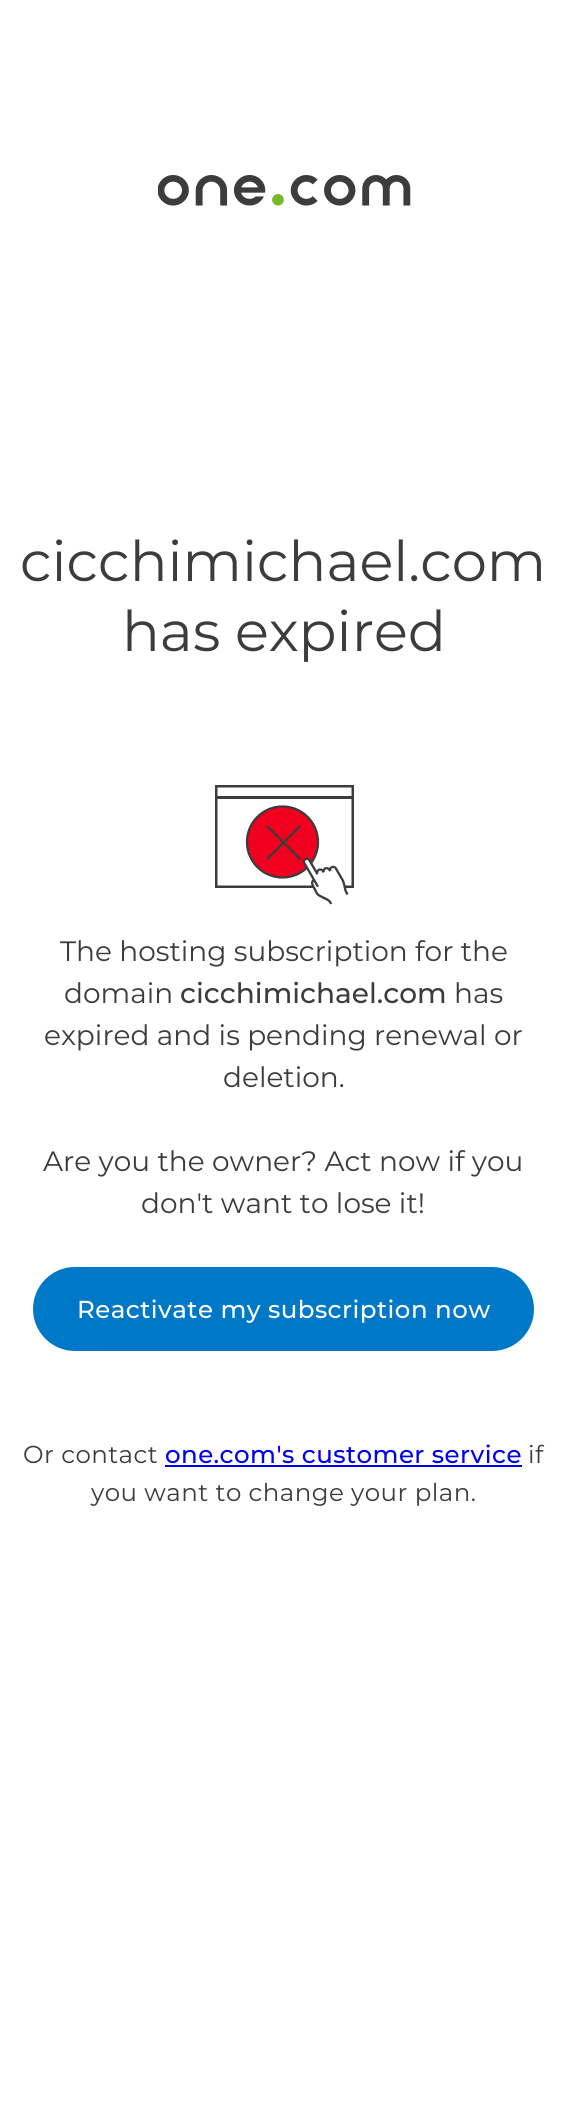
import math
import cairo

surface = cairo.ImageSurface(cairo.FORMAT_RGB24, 566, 2122)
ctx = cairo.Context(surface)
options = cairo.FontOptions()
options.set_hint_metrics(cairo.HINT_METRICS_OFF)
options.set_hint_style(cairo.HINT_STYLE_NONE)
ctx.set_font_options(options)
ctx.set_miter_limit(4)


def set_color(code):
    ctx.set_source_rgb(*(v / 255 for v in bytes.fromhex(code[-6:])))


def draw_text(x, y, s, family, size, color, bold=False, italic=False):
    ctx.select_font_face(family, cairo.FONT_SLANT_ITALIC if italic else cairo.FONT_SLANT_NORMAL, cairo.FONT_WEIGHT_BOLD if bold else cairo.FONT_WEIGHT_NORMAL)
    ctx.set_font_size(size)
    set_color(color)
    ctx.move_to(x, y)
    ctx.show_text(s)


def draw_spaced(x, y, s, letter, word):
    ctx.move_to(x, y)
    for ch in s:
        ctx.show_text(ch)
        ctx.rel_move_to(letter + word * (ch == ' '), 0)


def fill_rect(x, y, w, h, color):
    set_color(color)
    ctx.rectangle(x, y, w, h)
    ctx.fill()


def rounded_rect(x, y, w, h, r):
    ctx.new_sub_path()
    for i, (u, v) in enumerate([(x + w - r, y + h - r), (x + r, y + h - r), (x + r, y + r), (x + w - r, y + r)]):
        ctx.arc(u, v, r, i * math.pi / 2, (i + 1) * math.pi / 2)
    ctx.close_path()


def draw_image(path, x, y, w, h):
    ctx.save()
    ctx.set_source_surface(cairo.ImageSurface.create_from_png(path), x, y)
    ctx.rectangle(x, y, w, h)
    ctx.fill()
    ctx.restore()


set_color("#ffffff")
ctx.paint()
draw_image("assets/img1.png", 158, 175, 253, 31)
draw_text(20, 581, "cicchimichael.com", "Montserrat", 56, "#3c3c3c")
draw_text(122, 651, "has expired", "Montserrat", 56, "#3c3c3c")
draw_image("assets/img2.png", 215, 785, 139, 120)
draw_text(60, 961, "The hosting subscription for the", "Montserrat", 28, "#3c3c3c")
draw_text(64, 1003, "domain", "Montserrat", 28, "#3c3c3c")
draw_text(180, 1003, "cicchimichael.com", "Montserrat Medium", 28, "#3c3c3c")
draw_text(454, 1003, "has", "Montserrat", 28, "#3c3c3c")
draw_text(44, 1045, "expired and is pending renewal or", "Montserrat", 28, "#3c3c3c")
draw_text(223, 1087, "deletion.", "Montserrat", 28, "#3c3c3c")
draw_text(43, 1171, "Are you the owner? Act now if you", "Montserrat", 28, "#3c3c3c")
draw_text(141, 1213, "don't want to lose it!", "Montserrat", 28, "#3c3c3c")
set_color("#0078c8")
rounded_rect(34, 1268, 499, 82, 41)
ctx.fill_preserve()
ctx.stroke()
ctx.select_font_face("Montserrat Medium")
ctx.set_font_size(24.5)
set_color("#ffffff")
draw_spaced(77, 1318, "Reactivate my subscription now", 0.45, 0)
ctx.select_font_face("Montserrat")
set_color("#3c3c3c")
draw_spaced(23, 1463, "Or contact", 0.45, 0)
ctx.select_font_face("Montserrat Medium")
set_color("#0000ee")
draw_spaced(165, 1463, "one.com's customer service", 0.45, 0)
fill_rect(165, 1465, 357, 2, "#0000ee")
ctx.select_font_face("Montserrat")
set_color("#3c3c3c")
draw_spaced(528, 1463, "if", 0.45, 0)
draw_spaced(91, 1501, "you want to change your plan.", 0.45, 0)
surface.write_to_png("output.png")
